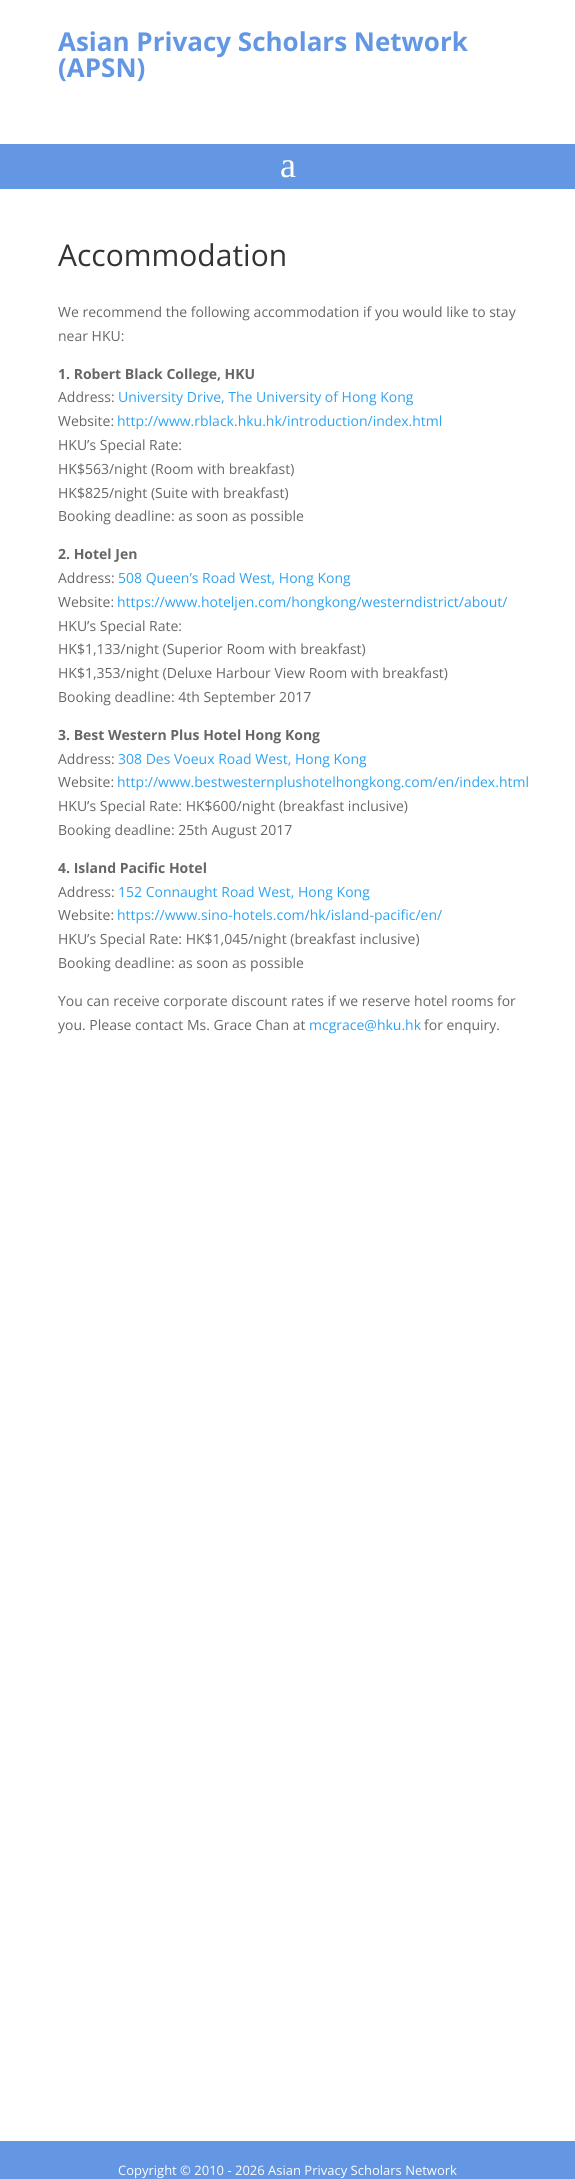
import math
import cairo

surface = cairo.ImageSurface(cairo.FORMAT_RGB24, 575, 2179)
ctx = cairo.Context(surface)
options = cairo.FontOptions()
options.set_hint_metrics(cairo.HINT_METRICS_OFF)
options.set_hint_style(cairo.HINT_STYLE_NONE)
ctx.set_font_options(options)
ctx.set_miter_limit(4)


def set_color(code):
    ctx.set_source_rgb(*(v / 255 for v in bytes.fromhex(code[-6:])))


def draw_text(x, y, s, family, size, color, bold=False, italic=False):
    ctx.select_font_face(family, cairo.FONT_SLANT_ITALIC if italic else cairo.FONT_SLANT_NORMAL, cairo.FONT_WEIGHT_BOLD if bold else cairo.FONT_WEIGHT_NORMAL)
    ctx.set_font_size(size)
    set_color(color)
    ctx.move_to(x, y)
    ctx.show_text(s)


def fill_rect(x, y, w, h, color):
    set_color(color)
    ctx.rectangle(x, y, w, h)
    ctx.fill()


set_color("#ffffff")
ctx.paint()
draw_text(58, 51, "Asian Privacy Scholars Network", "Open Sans", 26, "#6397e3", bold=True)
draw_text(58, 77, "(APSN)", "Open Sans", 26, "#6397e3", bold=True)
fill_rect(0, 144, 575, 45, "#6397e3")
draw_text(280, 177, "a", "Liberation Serif", 36, "#ffffff")
draw_text(58, 266, "Accommodation", "Open Sans", 30, "#333333")
draw_text(58, 317, "We recommend the following accommodation if you would like to stay", "Open Sans", 14, "#666666")
draw_text(58, 341, "near HKU:", "Open Sans", 14, "#666666")
draw_text(58, 379, "1. Robert Black College, HKU", "Open Sans", 14, "#666666", bold=True)
draw_text(58, 402, "Address:", "Open Sans", 14, "#666666")
draw_text(118, 402, "University Drive, The University of Hong Kong", "Open Sans", 14, "#2ea3f2")
draw_text(58, 426, "Website:", "Open Sans", 14, "#666666")
draw_text(117, 426, "http://www.rblack.hku.hk/introduction/index.html", "Open Sans", 14, "#2ea3f2")
draw_text(58, 450, "HKU’s Special Rate:", "Open Sans", 14, "#666666")
draw_text(58, 474, "HK$563/night (Room with breakfast)", "Open Sans", 14, "#666666")
draw_text(58, 498, "HK$825/night (Suite with breakfast)", "Open Sans", 14, "#666666")
draw_text(58, 521, "Booking deadline: as soon as possible", "Open Sans", 14, "#666666")
draw_text(58, 559, "2. Hotel Jen", "Open Sans", 14, "#666666", bold=True)
draw_text(58, 583, "Address:", "Open Sans", 14, "#666666")
draw_text(118, 583, "508 Queen’s Road West, Hong Kong", "Open Sans", 14, "#2ea3f2")
draw_text(58, 607, "Website:", "Open Sans", 14, "#666666")
draw_text(117, 607, "https://www.hoteljen.com/hongkong/westerndistrict/about/", "Open Sans", 14, "#2ea3f2")
draw_text(58, 631, "HKU’s Special Rate:", "Open Sans", 14, "#666666")
draw_text(58, 654, "HK$1,133/night (Superior Room with breakfast)", "Open Sans", 14, "#666666")
draw_text(58, 678, "HK$1,353/night (Deluxe Harbour View Room with breakfast)", "Open Sans", 14, "#666666")
draw_text(58, 702, "Booking deadline: 4th September 2017", "Open Sans", 14, "#666666")
draw_text(58, 740, "3. Best Western Plus Hotel Hong Kong", "Open Sans", 14, "#666666", bold=True)
draw_text(58, 764, "Address:", "Open Sans", 14, "#666666")
draw_text(118, 764, "308 Des Voeux Road West, Hong Kong", "Open Sans", 14, "#2ea3f2")
draw_text(58, 787, "Website:", "Open Sans", 14, "#666666")
draw_text(117, 787, "http://www.bestwesternplushotelhongkong.com/en/index.html", "Open Sans", 14, "#2ea3f2")
draw_text(58, 811, "HKU’s Special Rate: HK$600/night (breakfast inclusive)", "Open Sans", 14, "#666666")
draw_text(58, 835, "Booking deadline: 25th August 2017", "Open Sans", 14, "#666666")
draw_text(58, 873, "4. Island Pacific Hotel", "Open Sans", 14, "#666666", bold=True)
draw_text(58, 897, "Address:", "Open Sans", 14, "#666666")
draw_text(118, 897, "152 Connaught Road West, Hong Kong", "Open Sans", 14, "#2ea3f2")
draw_text(58, 920, "Website:", "Open Sans", 14, "#666666")
draw_text(117, 920, "https://www.sino-hotels.com/hk/island-pacific/en/", "Open Sans", 14, "#2ea3f2")
draw_text(58, 944, "HKU’s Special Rate: HK$1,045/night (breakfast inclusive)", "Open Sans", 14, "#666666")
draw_text(58, 968, "Booking deadline: as soon as possible", "Open Sans", 14, "#666666")
draw_text(58, 1006, "You can receive corporate discount rates if we reserve hotel rooms for", "Open Sans", 14, "#666666")
draw_text(58, 1030, "you. Please contact Ms. Grace Chan at", "Open Sans", 14, "#666666")
draw_text(309, 1030, "mcgrace@hku.hk", "Open Sans", 14, "#2ea3f2")
draw_text(424, 1030, "for enquiry.", "Open Sans", 14, "#666666")
fill_rect(0, 2141, 575, 38, "#6397e3")
draw_text(118, 2175, "Copyright © 2010 - 2026 Asian Privacy Scholars Network", "Open Sans", 13, "#ffffff")
surface.write_to_png("output.png")
